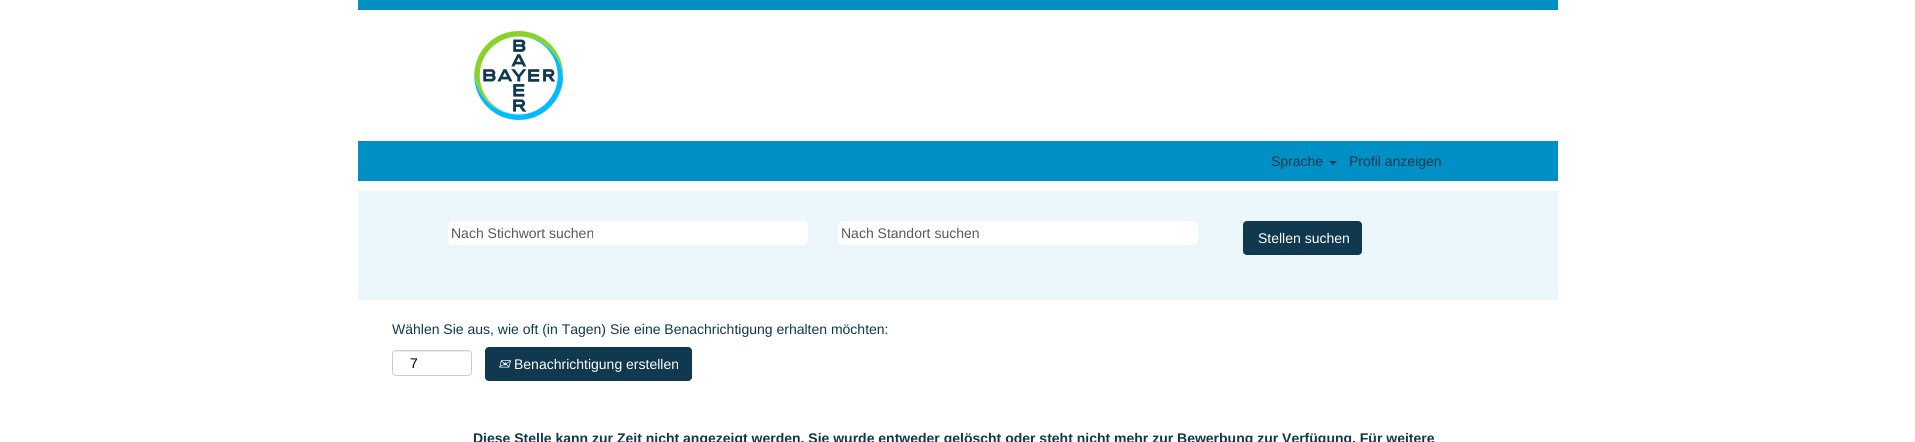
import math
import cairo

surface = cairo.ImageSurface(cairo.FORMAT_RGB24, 1915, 442)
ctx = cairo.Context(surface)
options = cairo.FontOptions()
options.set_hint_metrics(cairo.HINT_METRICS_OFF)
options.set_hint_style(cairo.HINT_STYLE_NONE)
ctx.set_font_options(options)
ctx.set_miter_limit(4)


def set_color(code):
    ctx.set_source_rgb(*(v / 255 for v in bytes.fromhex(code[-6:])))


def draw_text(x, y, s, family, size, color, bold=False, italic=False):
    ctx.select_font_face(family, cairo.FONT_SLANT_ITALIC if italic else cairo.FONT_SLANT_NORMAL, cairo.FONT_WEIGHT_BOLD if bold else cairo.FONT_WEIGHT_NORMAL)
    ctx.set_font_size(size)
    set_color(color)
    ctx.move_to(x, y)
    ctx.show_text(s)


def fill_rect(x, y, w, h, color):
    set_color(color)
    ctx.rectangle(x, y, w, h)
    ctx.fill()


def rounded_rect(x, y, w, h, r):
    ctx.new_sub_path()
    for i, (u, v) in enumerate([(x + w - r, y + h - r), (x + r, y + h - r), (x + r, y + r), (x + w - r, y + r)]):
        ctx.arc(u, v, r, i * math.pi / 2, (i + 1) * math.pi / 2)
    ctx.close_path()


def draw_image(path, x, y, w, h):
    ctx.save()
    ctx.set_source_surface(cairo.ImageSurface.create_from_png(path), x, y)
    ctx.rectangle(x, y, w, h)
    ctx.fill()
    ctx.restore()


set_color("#ffffff")
ctx.paint()
fill_rect(358, 0, 1200, 10, "#0090c5")
draw_image("assets/img1.png", 474, 31, 89, 89)
fill_rect(358, 141, 1200, 40, "#0090c5")
draw_text(1271, 166, "Sprache", "Liberation Sans", 14, "#10384f")
ctx.new_path()
ctx.move_to(1329, 161)
ctx.line_to(1337, 161)
ctx.line_to(1333, 165)
ctx.close_path()
ctx.fill()
draw_text(1349, 166, "Profil anzeigen", "Liberation Sans", 14, "#10384f")
fill_rect(358, 191, 1200, 109, "#ecf7fc")
set_color("#ffffff")
rounded_rect(448, 221, 360, 24, 5)
ctx.fill()
draw_text(451, 238, "Nach Stichwort suchen", "Liberation Sans", 14, "#595959")
set_color("#ffffff")
rounded_rect(838, 221, 360, 24, 5)
ctx.fill()
draw_text(841, 238, "Nach Standort suchen", "Liberation Sans", 14, "#595959")
set_color("#10384f")
rounded_rect(1243, 221, 119, 34, 4)
ctx.fill()
draw_text(1258, 243, "Stellen suchen", "Liberation Sans", 14, "#ffffff")
draw_text(392, 334, "Wählen Sie aus, wie oft (in Tagen) Sie eine Benachrichtigung erhalten möchten:", "Liberation Sans", 14, "#10384f")
set_color("#ececec")
ctx.new_path()
ctx.move_to(396, 352)
ctx.line_to(468, 352)
ctx.curve_to(470, 352, 471, 353, 471, 355)
ctx.curve_to(471, 348, 460, 351, 456, 351)
ctx.line_to(408, 351)
ctx.curve_to(404, 351, 393, 348, 393, 355)
ctx.curve_to(393, 353, 394, 352, 396, 352)
ctx.close_path()
ctx.fill()
rounded_rect(392.5, 350.5, 79, 25, 3.5)
set_color("#cccccc")
ctx.set_line_width(1)
ctx.stroke()
draw_text(410, 368, "7", "Liberation Sans", 14, "#000000")
set_color("#10384f")
rounded_rect(485, 347, 207, 34, 4)
ctx.fill()
draw_text(498, 369, "✉", "DejaVu Sans", 14, "#ffffff", italic=True)
draw_text(514, 369, "Benachrichtigung erstellen", "Liberation Sans", 14, "#ffffff")
draw_text(473, 443, "Diese Stelle kann zur Zeit nicht angezeigt werden. Sie wurde entweder gelöscht oder steht nicht mehr zur Bewerbung zur Verfügung. Für weitere", "Liberation Sans", 14, "#10384f", bold=True)
surface.write_to_png("output.png")
